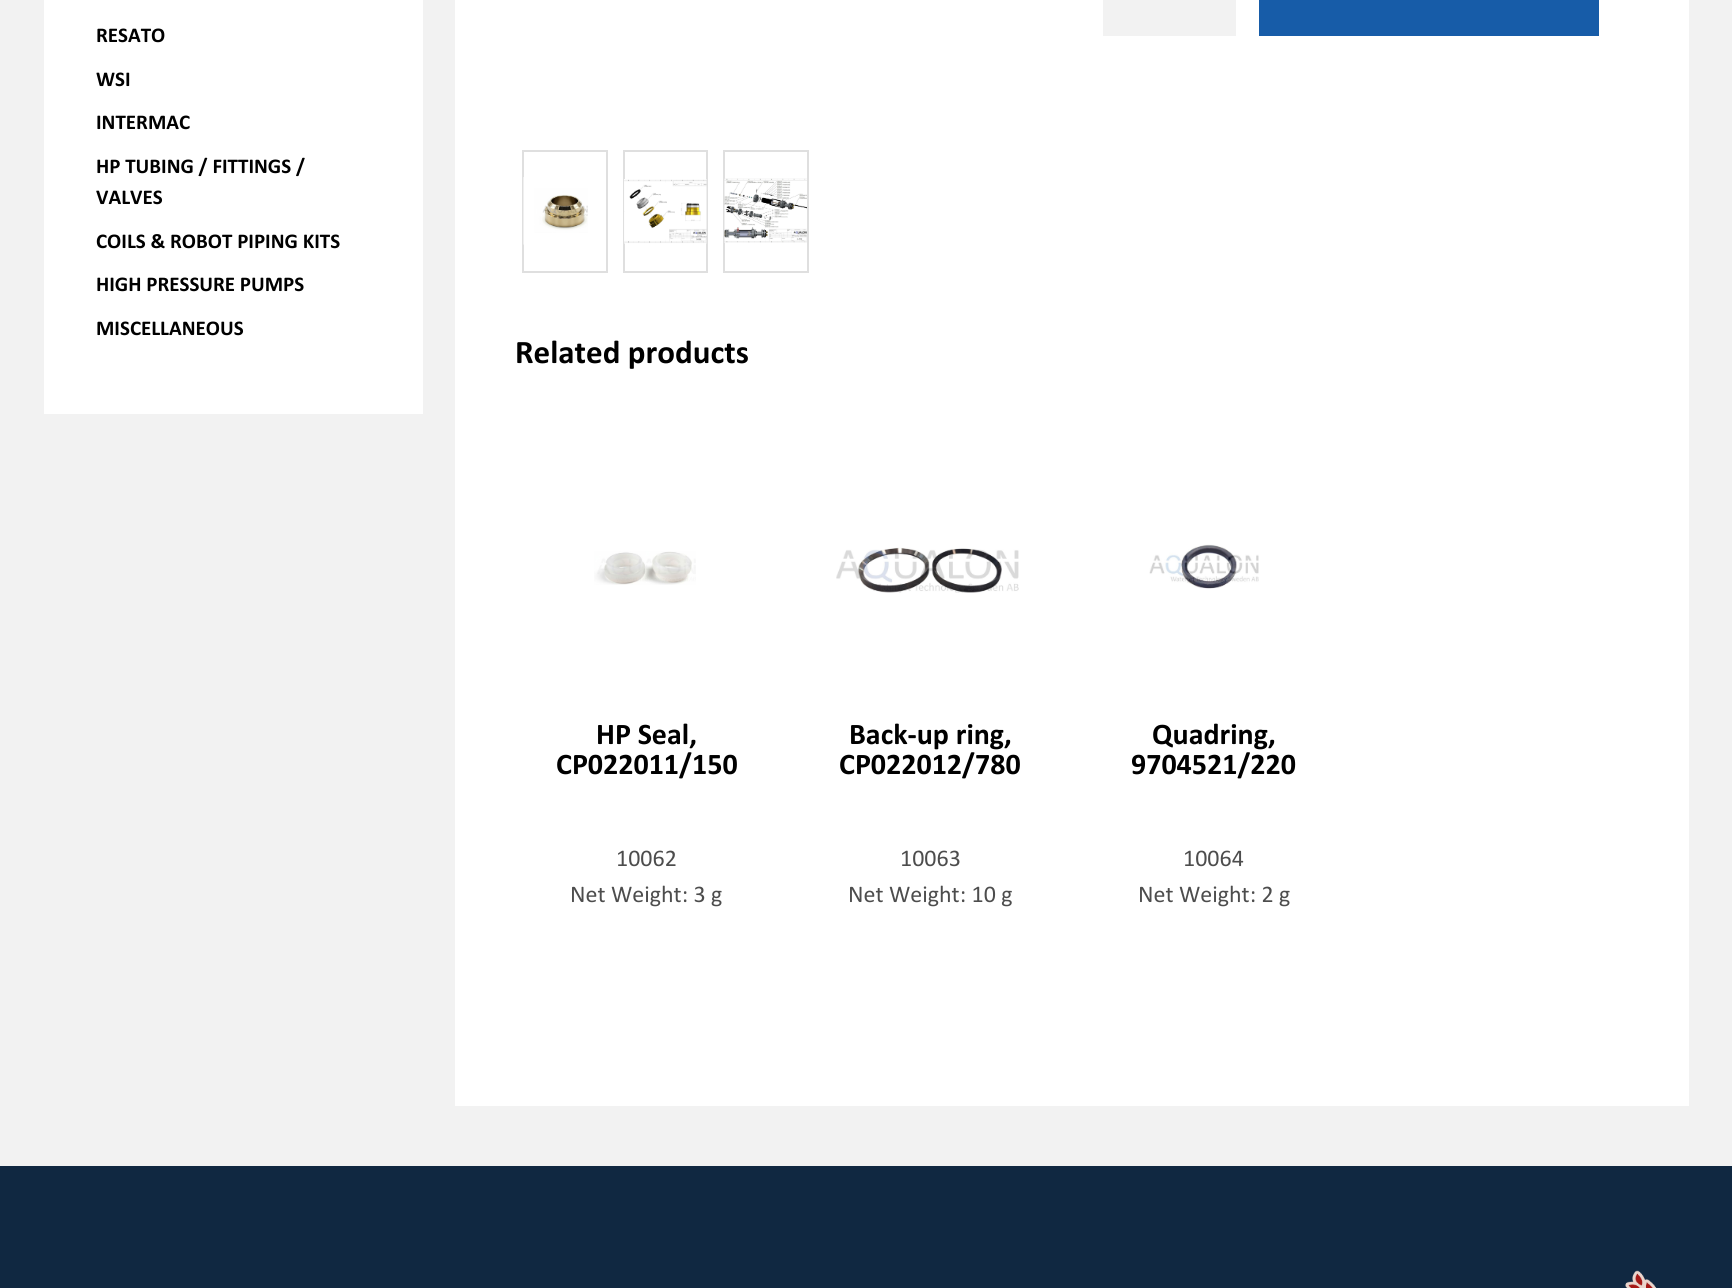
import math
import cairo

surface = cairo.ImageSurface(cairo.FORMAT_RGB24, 1732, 1288)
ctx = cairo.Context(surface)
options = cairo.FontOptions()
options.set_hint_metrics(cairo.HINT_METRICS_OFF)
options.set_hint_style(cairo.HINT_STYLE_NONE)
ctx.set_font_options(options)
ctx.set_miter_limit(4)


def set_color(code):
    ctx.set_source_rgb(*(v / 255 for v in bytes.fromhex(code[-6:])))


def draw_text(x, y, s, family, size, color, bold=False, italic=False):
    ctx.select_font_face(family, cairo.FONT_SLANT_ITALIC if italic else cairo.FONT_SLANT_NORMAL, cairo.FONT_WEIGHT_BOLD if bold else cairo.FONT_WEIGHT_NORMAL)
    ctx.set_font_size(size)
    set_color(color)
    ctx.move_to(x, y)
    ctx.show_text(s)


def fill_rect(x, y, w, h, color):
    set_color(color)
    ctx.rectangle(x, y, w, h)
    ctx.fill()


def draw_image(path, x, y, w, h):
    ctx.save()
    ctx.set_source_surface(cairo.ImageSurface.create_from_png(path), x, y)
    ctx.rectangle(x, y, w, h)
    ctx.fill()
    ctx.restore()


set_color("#f2f2f2")
ctx.paint()
fill_rect(44, 0, 379, 414, "#ffffff")
draw_text(96, 42, "RESATO", "Calibri", 21, "#000000", bold=True)
draw_text(96, 86, "WSI", "Calibri", 21, "#000000", bold=True)
draw_text(96, 129, "INTERMAC", "Calibri", 21, "#000000", bold=True)
draw_text(96, 173, "HP TUBING / FITTINGS /", "Calibri", 21, "#000000", bold=True)
draw_text(96, 204, "VALVES", "Calibri", 21, "#000000", bold=True)
draw_text(96, 248, "COILS & ROBOT PIPING KITS", "Calibri", 21, "#000000", bold=True)
draw_text(96, 291, "HIGH PRESSURE PUMPS", "Calibri", 21, "#000000", bold=True)
draw_text(96, 335, "MISCELLANEOUS", "Calibri", 21, "#000000", bold=True)
fill_rect(455, 0, 1234, 1106, "#ffffff")
fill_rect(1103, 0, 133, 36, "#f2f2f2")
fill_rect(1259, 0, 340, 36, "#175ca8")
ctx.rectangle(523, 151, 84, 121)
set_color("#dfdfdf")
ctx.stroke()
draw_image("assets/img1.png", 523, 177, 65, 68)
ctx.rectangle(624, 151, 83, 121)
ctx.stroke()
draw_image("assets/img2.png", 624, 179, 83, 65)
ctx.rectangle(724, 151, 84, 121)
ctx.stroke()
draw_image("assets/img3.png", 724, 178, 83, 65)
draw_text(515, 363, "Related products", "Calibri", 33, "#000000", bold=True)
draw_image("assets/img4.png", 594, 551, 102, 34)
draw_text(596, 744, "HP Seal,", "Calibri", 30, "#000000", bold=True)
draw_text(556, 774, "CP022011/150", "Calibri", 30, "#000000", bold=True)
draw_text(616, 866, "10062", "Calibri", 24, "#4d4d4d")
draw_text(570, 902, "Net Weight: 3 g", "Calibri", 24, "#4d4d4d")
draw_image("assets/img5.png", 836, 547, 183, 46)
draw_text(849, 744, "Back-up ring,", "Calibri", 30, "#000000", bold=True)
draw_text(839, 774, "CP022012/780", "Calibri", 30, "#000000", bold=True)
draw_text(900, 866, "10063", "Calibri", 24, "#4d4d4d")
draw_text(848, 902, "Net Weight: 10 g", "Calibri", 24, "#4d4d4d")
draw_image("assets/img6.png", 1149, 544, 110, 45)
draw_text(1152, 744, "Quadring,", "Calibri", 30, "#000000", bold=True)
draw_text(1131, 774, "9704521/220", "Calibri", 30, "#000000", bold=True)
draw_text(1183, 866, "10064", "Calibri", 24, "#4d4d4d")
draw_text(1138, 902, "Net Weight: 2 g", "Calibri", 24, "#4d4d4d")
fill_rect(0, 1166, 1732, 122, "#102841")
draw_image("assets/img7.png", 1625, 1270, 32, 18)
surface.write_to_png("output.png")
